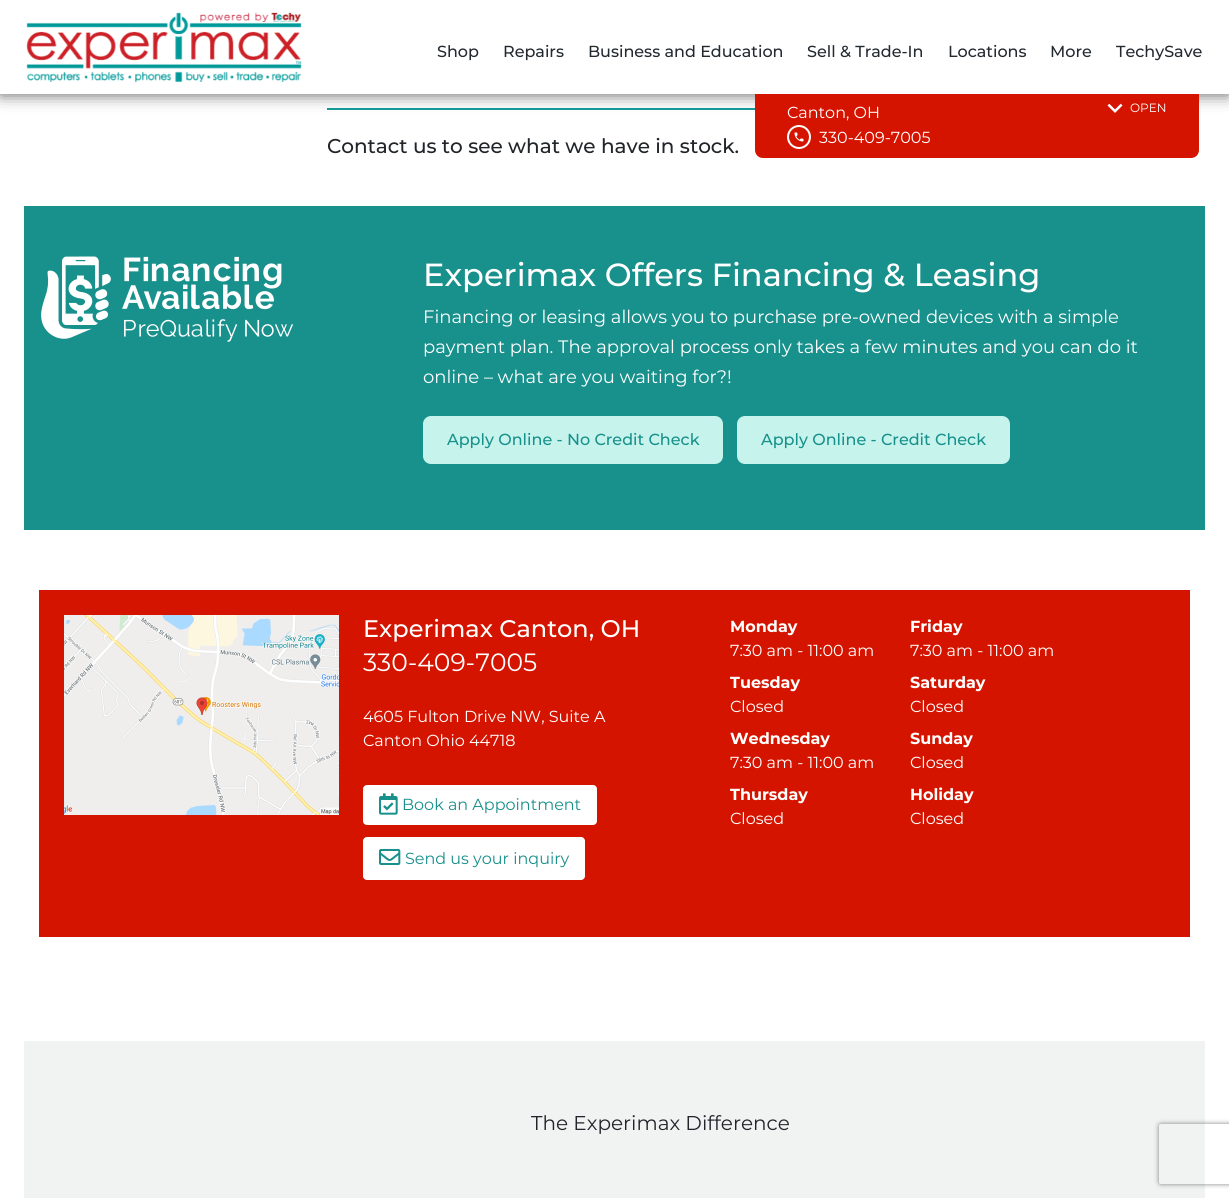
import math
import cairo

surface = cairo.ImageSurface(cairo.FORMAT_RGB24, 1229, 1198)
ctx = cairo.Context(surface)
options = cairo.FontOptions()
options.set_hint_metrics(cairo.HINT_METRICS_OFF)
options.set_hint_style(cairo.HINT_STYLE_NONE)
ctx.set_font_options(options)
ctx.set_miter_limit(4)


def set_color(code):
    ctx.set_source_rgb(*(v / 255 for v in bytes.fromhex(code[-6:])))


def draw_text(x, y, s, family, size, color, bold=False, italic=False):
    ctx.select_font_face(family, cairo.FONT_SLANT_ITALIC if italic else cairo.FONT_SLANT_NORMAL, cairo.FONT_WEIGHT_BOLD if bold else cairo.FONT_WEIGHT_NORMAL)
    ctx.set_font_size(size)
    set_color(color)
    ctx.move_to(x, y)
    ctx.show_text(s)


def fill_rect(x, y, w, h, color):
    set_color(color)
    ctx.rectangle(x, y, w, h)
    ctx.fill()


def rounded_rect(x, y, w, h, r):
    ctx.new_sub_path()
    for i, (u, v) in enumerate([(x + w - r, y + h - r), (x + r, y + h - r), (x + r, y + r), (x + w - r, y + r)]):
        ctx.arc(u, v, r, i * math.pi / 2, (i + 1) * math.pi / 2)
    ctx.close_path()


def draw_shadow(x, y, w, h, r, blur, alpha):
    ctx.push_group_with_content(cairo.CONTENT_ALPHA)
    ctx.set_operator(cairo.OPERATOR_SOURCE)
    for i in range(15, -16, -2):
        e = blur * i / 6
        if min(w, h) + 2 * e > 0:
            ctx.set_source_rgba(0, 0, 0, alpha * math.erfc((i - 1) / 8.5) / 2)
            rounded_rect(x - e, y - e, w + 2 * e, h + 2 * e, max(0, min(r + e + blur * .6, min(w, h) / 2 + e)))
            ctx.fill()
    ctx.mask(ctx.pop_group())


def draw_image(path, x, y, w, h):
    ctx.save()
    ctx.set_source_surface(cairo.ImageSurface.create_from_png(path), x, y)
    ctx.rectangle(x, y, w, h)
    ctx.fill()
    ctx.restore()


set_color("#ffffff")
ctx.paint()
fill_rect(327, 108, 428, 2, "#159c9b")
set_color("#000000")
draw_shadow(1, 1, 1227, 92, 0, 8.5, 0.75)
fill_rect(0, 0, 1229, 94, "#ffffff")
set_color("#d51400")
ctx.new_path()
ctx.move_to(755, 93)
ctx.line_to(1199, 93)
ctx.line_to(1199, 150)
ctx.curve_to(1199, 154.5, 1195.5, 158, 1191, 158)
ctx.line_to(763, 158)
ctx.curve_to(758.5, 158, 755, 154.5, 755, 150)
ctx.close_path()
ctx.fill()
fill_rect(755, 93, 444, 1, "#ffffff")
draw_image("assets/img1.png", 26, 12, 276, 70)
draw_text(437, 57, "Shop", "Montserrat Medium", 16, "#22292f")
draw_text(503, 57, "Repairs", "Montserrat Medium", 16, "#22292f")
draw_text(588, 57, "Business and Education", "Montserrat Medium", 16, "#22292f")
draw_text(807, 57, "Sell & Trade-In", "Montserrat Medium", 16, "#22292f")
draw_text(948, 57, "Locations", "Montserrat Medium", 16, "#22292f")
draw_text(1050, 57, "More", "Montserrat Medium", 16, "#22292f")
draw_text(1116, 57, "TechySave", "Montserrat Medium", 16, "#22292f")
draw_text(787, 118, "Canton, OH", "Montserrat", 16, "#ffffff")
ctx.new_path()
ctx.arc(799, 137, 11, 0, 2 * math.pi)
ctx.stroke()
draw_image("assets/img2.png", 794, 132, 10, 10)
draw_text(819, 143, "330-409-7005", "Montserrat", 16, "#ffffff")
draw_image("assets/img3.png", 1107, 103, 16, 10)
draw_text(1130, 112, "OPEN", "Montserrat", 12, "#ffffff")
draw_text(327, 153, "Contact us to see what we have in stock.", "Montserrat Medium", 20, "#212529")
fill_rect(24, 206, 1181, 324, "#18908b")
draw_image("assets/img4.png", 41, 256, 253, 86)
draw_text(423, 286, "Experimax Offers Financing & Leasing", "Montserrat Medium", 32, "#ffffff")
draw_text(423, 323, "Financing or leasing allows you to purchase pre-owned devices with a simple", "Montserrat", 18, "#ffffff")
draw_text(423, 353, "payment plan. The approval process only takes a few minutes and you can do it", "Montserrat", 18, "#ffffff")
draw_text(423, 383, "online – what are you waiting for?!", "Montserrat", 18, "#ffffff")
set_color("#c6f4ed")
rounded_rect(423, 416, 300, 48, 8)
ctx.fill()
draw_text(447, 445, "Apply Online - No Credit Check", "Montserrat Medium", 16, "#18908b")
set_color("#c6f4ed")
rounded_rect(737, 416, 273, 48, 8)
ctx.fill()
draw_text(761, 445, "Apply Online - Credit Check", "Montserrat Medium", 16, "#18908b")
fill_rect(39, 590, 1151, 347, "#d51400")
draw_image("assets/img5.png", 64, 615, 275, 200)
draw_text(363, 637, "Experimax Canton, OH", "Montserrat Medium", 24, "#ffffff")
draw_text(363, 671, "330-409-7005", "Montserrat", 25, "#ffffff")
draw_text(363, 722, "4605 Fulton Drive NW, Suite A", "Montserrat", 16, "#ffffff")
draw_text(363, 746, "Canton Ohio 44718", "Montserrat", 16, "#ffffff")
rounded_rect(363, 785, 234, 40, 4)
ctx.fill()
draw_image("assets/img6.png", 379, 793, 19, 22)
draw_text(402, 810, "Book an Appointment", "Montserrat", 16, "#18908b")
set_color("#ffffff")
rounded_rect(363, 837, 222, 43, 4)
ctx.fill()
draw_image("assets/img7.png", 379, 849, 22, 16)
draw_text(405, 864, "Send us your inquiry", "Montserrat", 16, "#18908b")
draw_text(730, 632, "Monday", "Montserrat", 16, "#ffffff", bold=True)
draw_text(730, 656, "7:30 am - 11:00 am", "Montserrat", 16, "#ffffff")
draw_text(910, 632, "Friday", "Montserrat", 16, "#ffffff", bold=True)
draw_text(910, 656, "7:30 am - 11:00 am", "Montserrat", 16, "#ffffff")
draw_text(730, 688, "Tuesday", "Montserrat", 16, "#ffffff", bold=True)
draw_text(730, 712, "Closed", "Montserrat", 16, "#ffffff")
draw_text(910, 688, "Saturday", "Montserrat", 16, "#ffffff", bold=True)
draw_text(910, 712, "Closed", "Montserrat", 16, "#ffffff")
draw_text(730, 744, "Wednesday", "Montserrat", 16, "#ffffff", bold=True)
draw_text(730, 768, "7:30 am - 11:00 am", "Montserrat", 16, "#ffffff")
draw_text(910, 744, "Sunday", "Montserrat", 16, "#ffffff", bold=True)
draw_text(910, 768, "Closed", "Montserrat", 16, "#ffffff")
draw_text(730, 800, "Thursday", "Montserrat", 16, "#ffffff", bold=True)
draw_text(730, 824, "Closed", "Montserrat", 16, "#ffffff")
draw_text(910, 800, "Holiday", "Montserrat", 16, "#ffffff", bold=True)
draw_text(910, 824, "Closed", "Montserrat", 16, "#ffffff")
fill_rect(24, 1041, 1181, 157, "#f0f3f2")
draw_text(531, 1130, "The Experimax Difference", "Montserrat", 20, "#212529")
ctx.save()
ctx.set_fill_rule(cairo.FILL_RULE_EVEN_ODD)
ctx.new_path()
ctx.move_to(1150, 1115)
ctx.line_to(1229, 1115)
ctx.line_to(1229, 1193)
ctx.line_to(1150, 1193)
ctx.close_path()
ctx.move_to(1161, 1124)
ctx.line_to(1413, 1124)
ctx.curve_to(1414, 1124, 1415, 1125, 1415, 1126)
ctx.line_to(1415, 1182)
ctx.curve_to(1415, 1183, 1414, 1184, 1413, 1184)
ctx.line_to(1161, 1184)
ctx.curve_to(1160, 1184, 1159, 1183, 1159, 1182)
ctx.line_to(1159, 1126)
ctx.curve_to(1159, 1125, 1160, 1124, 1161, 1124)
ctx.close_path()
ctx.clip()
set_color("#808080")
draw_shadow(1159, 1124, 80, 60, 2, 2.5, 1)
ctx.restore()
surface.write_to_png("output.png")
